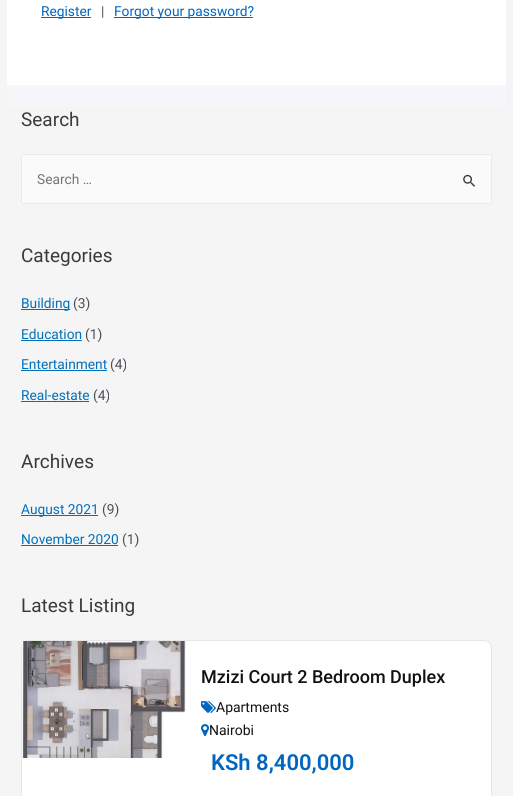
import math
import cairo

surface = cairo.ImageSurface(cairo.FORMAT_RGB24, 513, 796)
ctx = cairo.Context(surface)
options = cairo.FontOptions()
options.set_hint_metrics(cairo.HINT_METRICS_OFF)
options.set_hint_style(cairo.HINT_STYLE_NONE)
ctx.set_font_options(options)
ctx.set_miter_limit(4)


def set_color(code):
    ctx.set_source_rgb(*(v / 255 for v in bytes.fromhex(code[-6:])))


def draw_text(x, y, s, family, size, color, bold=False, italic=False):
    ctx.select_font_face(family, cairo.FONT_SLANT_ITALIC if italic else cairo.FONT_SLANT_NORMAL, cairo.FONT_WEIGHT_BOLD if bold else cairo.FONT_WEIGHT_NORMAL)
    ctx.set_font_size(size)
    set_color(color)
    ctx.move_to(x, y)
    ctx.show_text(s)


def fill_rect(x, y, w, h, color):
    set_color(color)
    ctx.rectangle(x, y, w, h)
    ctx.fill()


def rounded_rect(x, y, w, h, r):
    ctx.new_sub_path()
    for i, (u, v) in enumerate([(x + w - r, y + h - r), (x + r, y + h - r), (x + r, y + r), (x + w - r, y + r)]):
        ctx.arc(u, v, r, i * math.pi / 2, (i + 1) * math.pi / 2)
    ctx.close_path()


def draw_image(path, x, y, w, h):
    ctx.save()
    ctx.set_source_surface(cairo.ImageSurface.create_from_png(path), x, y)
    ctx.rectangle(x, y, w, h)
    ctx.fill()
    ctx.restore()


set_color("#f5f5f5")
ctx.paint()
fill_rect(7, 85, 499, 21, "#f5f7fa")
fill_rect(7, 0, 499, 85, "#ffffff")
fill_rect(41, 17, 50, 1, "#0066bf")
draw_text(41, 16, "Register", "Roboto", 13.75, "#0066bf")
draw_text(101, 16, "|", "Roboto", 13.75, "#4b4f58")
fill_rect(114, 17, 139, 1, "#0066bf")
draw_text(114, 16, "Forgot your password?", "Roboto", 13.75, "#0066bf")
draw_text(21, 126, "Search", "Roboto", 19, "#3a3a3a")
set_color("#fafafa")
rounded_rect(21.5, 154.5, 470, 49, 1.5)
ctx.fill_preserve()
set_color("#eaeaea")
ctx.set_line_width(1)
ctx.stroke()
draw_text(37, 184, "Search …", "Roboto", 13.75, "#757575")
draw_image("assets/img1.png", 463, 174, 12, 13)
draw_text(21, 262, "Categories", "Roboto", 19, "#3a3a3a")
fill_rect(21, 309, 49, 1, "#0170b9")
draw_text(21, 308, "Building", "Roboto", 13.75, "#0170b9")
draw_text(73, 308, "(3)", "Roboto", 13.75, "#4b4f58")
draw_text(21, 339, "Education", "Roboto", 13.75, "#0170b9")
fill_rect(21, 340, 61, 1, "#0170b9")
draw_text(85, 339, "(1)", "Roboto", 13.75, "#4b4f58")
draw_text(21, 369, "Entertainment", "Roboto", 13.75, "#0170b9")
fill_rect(21, 370, 86, 1, "#0170b9")
draw_text(110, 369, "(4)", "Roboto", 13.75, "#4b4f58")
draw_text(21, 400, "Real-estate", "Roboto", 13.75, "#0170b9")
fill_rect(21, 401, 68, 1, "#0170b9")
draw_text(93, 400, "(4)", "Roboto", 13.75, "#4b4f58")
draw_text(21, 468, "Archives", "Roboto", 19, "#3a3a3a")
fill_rect(21, 515, 77, 1, "#0170b9")
draw_text(21, 514, "August 2021", "Roboto", 13.75, "#0170b9")
draw_text(102, 514, "(9)", "Roboto", 13.75, "#4b4f58")
draw_text(21, 544, "November 2020", "Roboto", 13.75, "#0170b9")
fill_rect(21, 545, 97, 1, "#0170b9")
draw_text(122, 544, "(1)", "Roboto", 13.75, "#4b4f58")
draw_text(21, 612, "Latest Listing", "Roboto", 19, "#3a3a3a")
set_color("#ffffff")
rounded_rect(21, 640, 471, 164, 8)
ctx.fill()
rounded_rect(21.5, 640.5, 470, 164, 7.5)
ctx.set_source_rgba(0, 0, 0, 0.1)
ctx.stroke()
draw_image("assets/img2.png", 22, 641, 164, 117)
draw_text(201, 683, "Mzizi Court 2 Bedroom Duplex", "Roboto Medium", 18, "#111111")
draw_image("assets/img3.png", 201, 701, 15, 12)
draw_text(216, 712, "Apartments", "Roboto", 14, "#111111")
draw_image("assets/img4.png", 201, 724, 8, 12)
draw_text(209, 735, "Nairobi", "Roboto", 14, "#111111")
draw_text(211, 770, "KSh 8,400,000", "Roboto SemiBold", 22, "#0066bf")
surface.write_to_png("output.png")
